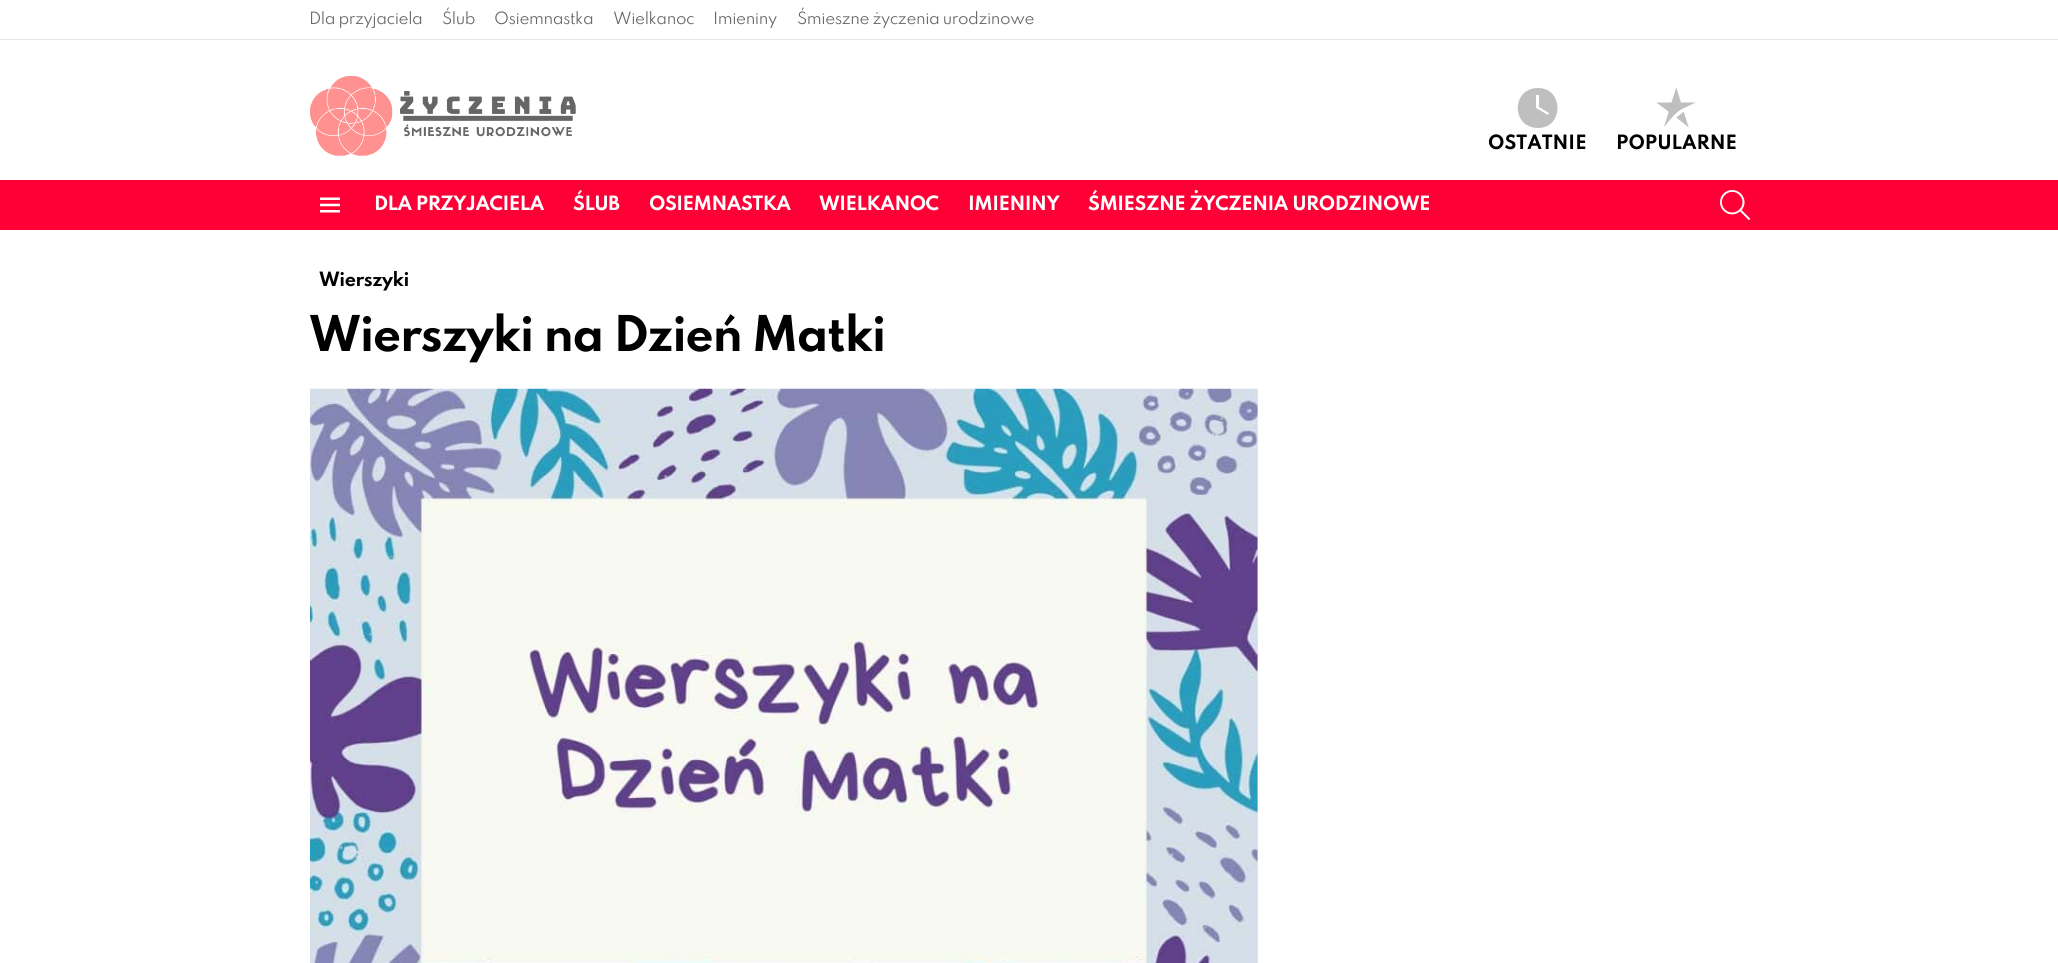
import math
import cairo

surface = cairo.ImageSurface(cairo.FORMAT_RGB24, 2058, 963)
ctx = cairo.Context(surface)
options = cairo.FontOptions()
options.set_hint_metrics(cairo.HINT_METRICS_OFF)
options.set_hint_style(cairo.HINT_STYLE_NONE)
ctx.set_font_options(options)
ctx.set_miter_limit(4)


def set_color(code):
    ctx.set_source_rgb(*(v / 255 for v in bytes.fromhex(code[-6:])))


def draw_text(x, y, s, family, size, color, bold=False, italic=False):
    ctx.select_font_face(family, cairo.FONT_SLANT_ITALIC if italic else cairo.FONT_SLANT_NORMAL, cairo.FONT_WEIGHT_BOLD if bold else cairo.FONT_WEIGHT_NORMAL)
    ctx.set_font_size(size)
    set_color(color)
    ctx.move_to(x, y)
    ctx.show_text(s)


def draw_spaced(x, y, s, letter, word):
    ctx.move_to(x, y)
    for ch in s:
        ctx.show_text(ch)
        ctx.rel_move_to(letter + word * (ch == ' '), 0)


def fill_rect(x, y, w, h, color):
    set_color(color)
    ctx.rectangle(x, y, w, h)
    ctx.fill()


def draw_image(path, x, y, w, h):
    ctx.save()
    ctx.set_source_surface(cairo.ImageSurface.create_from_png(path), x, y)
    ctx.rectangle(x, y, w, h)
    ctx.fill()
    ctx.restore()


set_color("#ffffff")
ctx.paint()
ctx.select_font_face("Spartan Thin")
ctx.set_font_size(15)
set_color("#666666")
draw_spaced(309, 24, "Dla przyjaciela", -0.45, 0)
draw_spaced(442, 24, "Ślub", -0.45, 0)
draw_spaced(494, 24, "Osiemnastka", -0.45, 0)
draw_spaced(613, 24, "Wielkanoc", -0.45, 0)
draw_spaced(713, 24, "Imieniny", -0.45, 0)
draw_spaced(797, 24, "Śmieszne życzenia urodzinowe", -0.45, 0)
fill_rect(0, 39, 2058, 1, "#e6e6e6")
draw_image("assets/img1.png", 310, 76, 266, 80)
set_color("#bfbfbf")
ctx.new_path()
ctx.move_to(1538, 88)
ctx.curve_to(1511, 88, 1511, 128, 1538, 128)
ctx.curve_to(1564, 128, 1564, 88, 1538, 88)
ctx.close_path()
ctx.move_to(1548, 115)
ctx.line_to(1536, 108)
ctx.line_to(1536, 95)
ctx.line_to(1539, 95)
ctx.line_to(1539, 107)
ctx.line_to(1549, 113)
ctx.close_path()
ctx.fill()
draw_text(1488, 149, "OSTATNIE", "Spartan Thin", 17.5, "#000000", bold=True)
draw_image("assets/img2.png", 1656, 88, 40, 40)
draw_text(1616, 149, "POPULARNE", "Spartan Thin", 17.5, "#000000", bold=True)
fill_rect(0, 180, 2058, 50, "#ff0036")
draw_image("assets/img3.png", 320, 197, 20, 16)
set_color("#ffffff")
draw_spaced(374, 210, "DLA PRZYJACIELA", -0.5, 0)
draw_spaced(573, 210, "ŚLUB", -0.5, 0)
draw_spaced(649, 210, "OSIEMNASTKA", -0.5, 0)
draw_spaced(819, 210, "WIELKANOC", -0.5, 0)
draw_spaced(968, 210, "IMIENINY", -0.5, 0)
draw_spaced(1088, 210, "ŚMIESZNE ŻYCZENIA URODZINOWE", -0.5, 0)
draw_image("assets/img4.png", 1720, 190, 30, 30)
set_color("#000000")
draw_spaced(319, 286, "Wierszyki", -0.5, 0)
ctx.set_font_size(43.75)
draw_spaced(309, 351, "Wierszyki na Dzień Matki", -1.3, 0)
fill_rect(1257, 389, 1, 574, "#e6e6e6")
draw_image("assets/img5.png", 310, 388, 948, 575)
surface.write_to_png("output.png")
